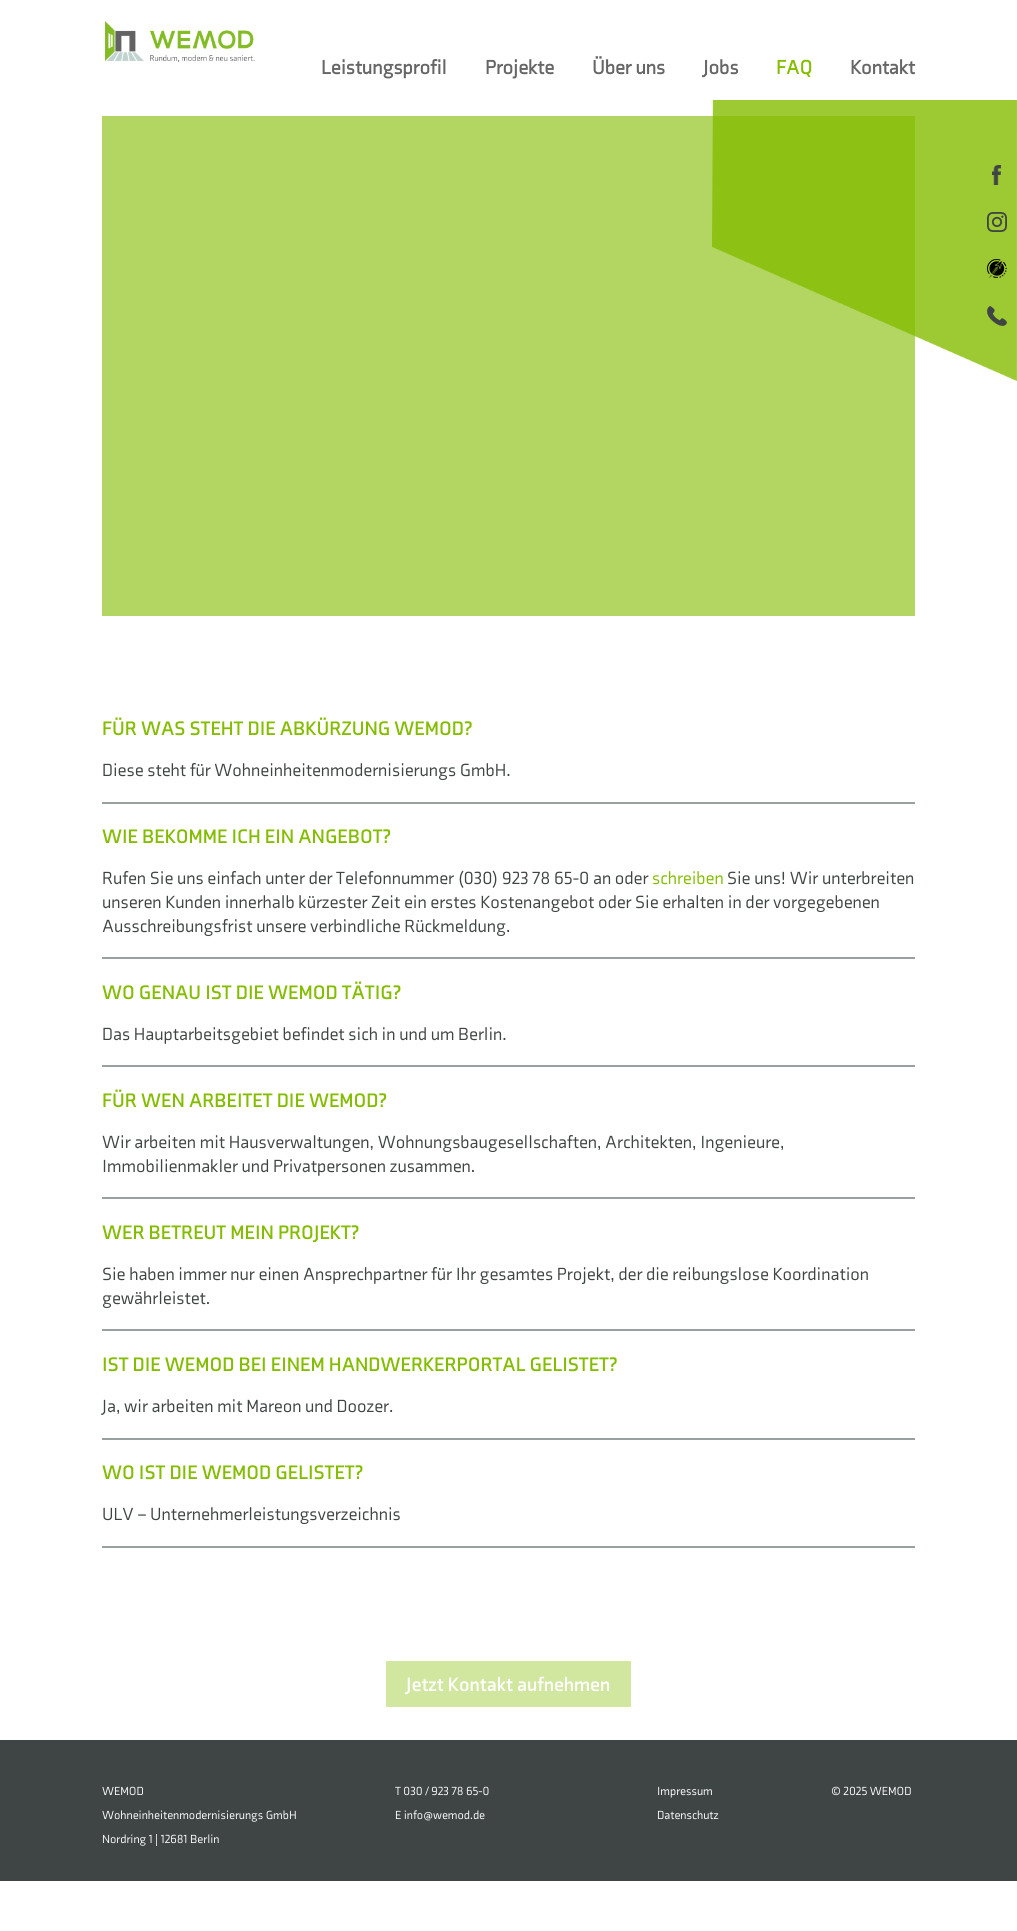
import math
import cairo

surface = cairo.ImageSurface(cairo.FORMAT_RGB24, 1017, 1931)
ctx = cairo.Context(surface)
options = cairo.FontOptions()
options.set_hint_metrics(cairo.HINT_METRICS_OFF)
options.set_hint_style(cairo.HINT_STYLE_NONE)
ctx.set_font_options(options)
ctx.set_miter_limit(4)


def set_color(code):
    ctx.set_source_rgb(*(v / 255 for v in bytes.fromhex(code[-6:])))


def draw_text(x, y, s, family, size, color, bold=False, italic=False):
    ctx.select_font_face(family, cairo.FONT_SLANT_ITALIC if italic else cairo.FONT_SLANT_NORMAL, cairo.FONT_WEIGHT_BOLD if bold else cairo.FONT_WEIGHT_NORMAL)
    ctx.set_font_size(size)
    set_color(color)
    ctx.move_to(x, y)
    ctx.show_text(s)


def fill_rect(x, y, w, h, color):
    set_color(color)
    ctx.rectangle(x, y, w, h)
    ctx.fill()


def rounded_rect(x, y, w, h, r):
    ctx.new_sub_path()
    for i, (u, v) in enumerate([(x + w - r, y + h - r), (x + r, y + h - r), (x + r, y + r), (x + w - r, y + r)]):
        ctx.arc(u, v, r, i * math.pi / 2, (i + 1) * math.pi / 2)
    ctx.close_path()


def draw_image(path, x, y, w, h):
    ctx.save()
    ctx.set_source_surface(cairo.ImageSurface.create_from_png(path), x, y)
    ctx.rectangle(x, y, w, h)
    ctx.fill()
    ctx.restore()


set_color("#ffffff")
ctx.paint()
draw_image("assets/img1.png", 105, 21, 150, 41)
draw_text(321, 74, "Leistungsprofil", "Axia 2", 20, "#666666", bold=True)
draw_text(485, 74, "Projekte", "Axia 2", 20, "#666666", bold=True)
draw_text(592, 74, "Über uns", "Axia 2", 20, "#666666", bold=True)
draw_text(703, 74, "Jobs", "Axia 2", 20, "#666666", bold=True)
draw_text(776, 74, "FAQ", "Axia 2", 20, "#84bd00", bold=True)
draw_text(850, 74, "Kontakt", "Axia 2", 20, "#666666", bold=True)
draw_image("assets/img2.png", 712, 100, 305, 281)
ctx.set_source_rgba(0.518, 0.741, 0, 0.61)
ctx.rectangle(102, 116, 813, 500)
ctx.fill()
fill_rect(102, 802, 813, 2, "#98a0a0")
draw_text(102, 735, "FÜR WAS STEHT DIE ABKÜRZUNG WEMOD?", "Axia", 20, "#84bd00", bold=True)
draw_text(102, 776, "Diese steht für Wohneinheitenmodernisierungs GmbH.", "Axia", 18, "#3f4444")
fill_rect(102, 957, 813, 2, "#98a0a0")
draw_text(102, 843, "WIE BEKOMME ICH EIN ANGEBOT?", "Axia", 20, "#84bd00", bold=True)
draw_text(102, 884, "Rufen Sie uns einfach unter der Telefonnummer (030) 923 78 65-0 an oder", "Axia", 18, "#3f4444")
draw_text(652, 884, "schreiben", "Axia", 18, "#84bd00")
draw_text(727, 884, "Sie uns! Wir unterbreiten", "Axia", 18, "#3f4444")
draw_text(102, 908, "unseren Kunden innerhalb kürzester Zeit ein erstes Kostenangebot oder Sie erhalten in der vorgegebenen", "Axia", 18, "#3f4444")
draw_text(102, 932, "Ausschreibungsfrist unsere verbindliche Rückmeldung.", "Axia", 18, "#3f4444")
fill_rect(102, 1065, 813, 2, "#98a0a0")
draw_text(102, 999, "WO GENAU IST DIE WEMOD TÄTIG?", "Axia", 20, "#84bd00", bold=True)
draw_text(102, 1040, "Das Hauptarbeitsgebiet befindet sich in und um Berlin.", "Axia", 18, "#3f4444")
fill_rect(102, 1197, 813, 2, "#98a0a0")
draw_text(102, 1107, "FÜR WEN ARBEITET DIE WEMOD?", "Axia", 20, "#84bd00", bold=True)
draw_text(102, 1148, "Wir arbeiten mit Hausverwaltungen, Wohnungsbaugesellschaften, Architekten, Ingenieure,", "Axia", 18, "#3f4444")
draw_text(102, 1172, "Immobilienmakler und Privatpersonen zusammen.", "Axia", 18, "#3f4444")
fill_rect(102, 1329, 813, 2, "#98a0a0")
draw_text(102, 1239, "WER BETREUT MEIN PROJEKT?", "Axia", 20, "#84bd00", bold=True)
draw_text(102, 1280, "Sie haben immer nur einen Ansprechpartner für Ihr gesamtes Projekt, der die reibungslose Koordination", "Axia", 18, "#3f4444")
draw_text(102, 1304, "gewährleistet.", "Axia", 18, "#3f4444")
fill_rect(102, 1438, 813, 2, "#98a0a0")
draw_text(102, 1371, "IST DIE WEMOD BEI EINEM HANDWERKERPORTAL GELISTET?", "Axia", 20, "#84bd00", bold=True)
draw_text(102, 1412, "Ja, wir arbeiten mit Mareon und Doozer.", "Axia", 18, "#3f4444")
fill_rect(102, 1546, 813, 2, "#98a0a0")
draw_text(102, 1479, "WO IST DIE WEMOD GELISTET?", "Axia", 20, "#84bd00", bold=True)
draw_text(102, 1520, "ULV – Unternehmerleistungsverzeichnis", "Axia", 18, "#3f4444")
set_color("#d1e69f")
rounded_rect(385, 1660, 247, 48, 2)
ctx.fill_preserve()
set_color("#ffffff")
ctx.stroke()
draw_text(406, 1691, "Jetzt Kontakt aufnehmen", "Axia", 20, "#ffffff", bold=True)
fill_rect(0, 1740, 1017, 141, "#3f4444")
draw_text(102, 1795, "WEMOD", "Axia", 12, "#ffffff")
draw_text(102, 1819, "Wohneinheitenmodernisierungs GmbH", "Axia", 12, "#ffffff")
draw_text(102, 1843, "Nordring 1 | 12681 Berlin", "Axia", 12, "#ffffff")
draw_text(395, 1795, "T 030 / 923 78 65-0", "Axia", 12, "#ffffff")
draw_text(395, 1819, "E info@wemod.de", "Axia", 12, "#ffffff")
draw_text(657, 1795, "Impressum", "Axia", 12, "#ffffff")
draw_text(657, 1819, "Datenschutz", "Axia", 12, "#ffffff")
draw_text(831, 1795, "© 2025 WEMOD", "Axia", 12, "#ffffff")
draw_image("assets/img3.png", 992, 165, 9, 20)
draw_image("assets/img4.png", 987, 212, 20, 20)
draw_image("assets/img5.png", 987, 259, 20, 19)
draw_image("assets/img6.png", 987, 306, 20, 20)
surface.write_to_png("output.png")
